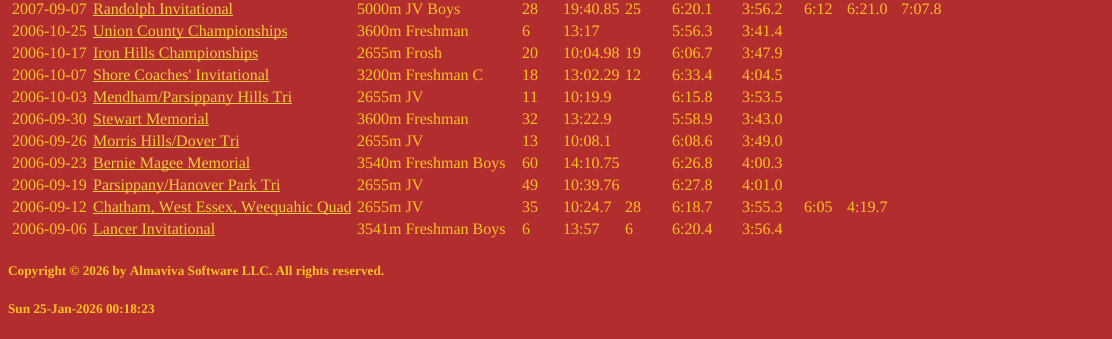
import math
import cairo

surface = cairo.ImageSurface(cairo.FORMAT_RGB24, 1112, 339)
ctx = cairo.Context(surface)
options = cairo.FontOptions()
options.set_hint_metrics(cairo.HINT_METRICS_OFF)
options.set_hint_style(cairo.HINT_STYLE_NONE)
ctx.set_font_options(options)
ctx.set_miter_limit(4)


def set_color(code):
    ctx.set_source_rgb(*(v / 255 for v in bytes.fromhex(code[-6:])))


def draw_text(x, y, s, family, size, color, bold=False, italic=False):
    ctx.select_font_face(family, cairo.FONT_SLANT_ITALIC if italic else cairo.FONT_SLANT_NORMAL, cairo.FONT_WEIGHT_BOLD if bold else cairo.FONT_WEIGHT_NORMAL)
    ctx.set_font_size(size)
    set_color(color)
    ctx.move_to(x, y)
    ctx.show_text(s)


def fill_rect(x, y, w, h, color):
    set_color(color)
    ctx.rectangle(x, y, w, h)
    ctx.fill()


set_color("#b22e2e")
ctx.paint()
draw_text(12, 14, "2007-09-07", "Liberation Serif", 16, "#ffbf23")
fill_rect(93, 15, 140, 1, "#f5cb3b")
draw_text(93, 14, "Randolph Invitational", "Liberation Serif", 16, "#f5cb3b")
draw_text(357, 14, "5000m JV Boys", "Liberation Serif", 16, "#ffbf23")
draw_text(522, 14, "28", "Liberation Serif", 16, "#ffbf23")
draw_text(563, 14, "19:40.85", "Liberation Serif", 16, "#ffbf23")
draw_text(625, 14, "25", "Liberation Serif", 16, "#ffbf23")
draw_text(672, 14, "6:20.1", "Liberation Serif", 16, "#ffbf23")
draw_text(742, 14, "3:56.2", "Liberation Serif", 16, "#ffbf23")
draw_text(804, 14, "6:12", "Liberation Serif", 16, "#ffbf23")
draw_text(847, 14, "6:21.0", "Liberation Serif", 16, "#ffbf23")
draw_text(901, 14, "7:07.8", "Liberation Serif", 16, "#ffbf23")
draw_text(12, 36, "2006-10-25", "Liberation Serif", 16, "#ffbf23")
fill_rect(93, 37, 194, 1, "#f5cb3b")
draw_text(93, 36, "Union County Championships", "Liberation Serif", 16, "#f5cb3b")
draw_text(357, 36, "3600m Freshman", "Liberation Serif", 16, "#ffbf23")
draw_text(522, 36, "6", "Liberation Serif", 16, "#ffbf23")
draw_text(563, 36, "13:17", "Liberation Serif", 16, "#ffbf23")
draw_text(672, 36, "5:56.3", "Liberation Serif", 16, "#ffbf23")
draw_text(742, 36, "3:41.4", "Liberation Serif", 16, "#ffbf23")
draw_text(12, 58, "2006-10-17", "Liberation Serif", 16, "#ffbf23")
fill_rect(93, 59, 165, 1, "#f5cb3b")
draw_text(93, 58, "Iron Hills Championships", "Liberation Serif", 16, "#f5cb3b")
draw_text(357, 58, "2655m Frosh", "Liberation Serif", 16, "#ffbf23")
draw_text(522, 58, "20", "Liberation Serif", 16, "#ffbf23")
draw_text(563, 58, "10:04.98", "Liberation Serif", 16, "#ffbf23")
draw_text(625, 58, "19", "Liberation Serif", 16, "#ffbf23")
draw_text(672, 58, "6:06.7", "Liberation Serif", 16, "#ffbf23")
draw_text(742, 58, "3:47.9", "Liberation Serif", 16, "#ffbf23")
draw_text(12, 80, "2006-10-07", "Liberation Serif", 16, "#ffbf23")
draw_text(93, 80, "Shore Coaches' Invitational", "Liberation Serif", 16, "#f5cb3b")
fill_rect(93, 81, 176, 1, "#f5cb3b")
draw_text(357, 80, "3200m Freshman C", "Liberation Serif", 16, "#ffbf23")
draw_text(522, 80, "18", "Liberation Serif", 16, "#ffbf23")
draw_text(563, 80, "13:02.29", "Liberation Serif", 16, "#ffbf23")
draw_text(625, 80, "12", "Liberation Serif", 16, "#ffbf23")
draw_text(672, 80, "6:33.4", "Liberation Serif", 16, "#ffbf23")
draw_text(742, 80, "4:04.5", "Liberation Serif", 16, "#ffbf23")
draw_text(12, 102, "2006-10-03", "Liberation Serif", 16, "#ffbf23")
fill_rect(93, 103, 199, 1, "#f5cb3b")
draw_text(93, 102, "Mendham/Parsippany Hills Tri", "Liberation Serif", 16, "#f5cb3b")
draw_text(357, 102, "2655m JV", "Liberation Serif", 16, "#ffbf23")
draw_text(522, 102, "11", "Liberation Serif", 16, "#ffbf23")
draw_text(563, 102, "10:19.9", "Liberation Serif", 16, "#ffbf23")
draw_text(672, 102, "6:15.8", "Liberation Serif", 16, "#ffbf23")
draw_text(742, 102, "3:53.5", "Liberation Serif", 16, "#ffbf23")
draw_text(12, 124, "2006-09-30", "Liberation Serif", 16, "#ffbf23")
draw_text(93, 124, "Stewart Memorial", "Liberation Serif", 16, "#f5cb3b")
fill_rect(93, 125, 116, 1, "#f5cb3b")
draw_text(357, 124, "3600m Freshman", "Liberation Serif", 16, "#ffbf23")
draw_text(522, 124, "32", "Liberation Serif", 16, "#ffbf23")
draw_text(563, 124, "13:22.9", "Liberation Serif", 16, "#ffbf23")
draw_text(672, 124, "5:58.9", "Liberation Serif", 16, "#ffbf23")
draw_text(742, 124, "3:43.0", "Liberation Serif", 16, "#ffbf23")
draw_text(12, 146, "2006-09-26", "Liberation Serif", 16, "#ffbf23")
draw_text(93, 146, "Morris Hills/Dover Tri", "Liberation Serif", 16, "#f5cb3b")
fill_rect(93, 147, 146, 1, "#f5cb3b")
draw_text(357, 146, "2655m JV", "Liberation Serif", 16, "#ffbf23")
draw_text(522, 146, "13", "Liberation Serif", 16, "#ffbf23")
draw_text(563, 146, "10:08.1", "Liberation Serif", 16, "#ffbf23")
draw_text(672, 146, "6:08.6", "Liberation Serif", 16, "#ffbf23")
draw_text(742, 146, "3:49.0", "Liberation Serif", 16, "#ffbf23")
draw_text(12, 168, "2006-09-23", "Liberation Serif", 16, "#ffbf23")
fill_rect(93, 169, 157, 1, "#f5cb3b")
draw_text(93, 168, "Bernie Magee Memorial", "Liberation Serif", 16, "#f5cb3b")
draw_text(357, 168, "3540m Freshman Boys", "Liberation Serif", 16, "#ffbf23")
draw_text(522, 168, "60", "Liberation Serif", 16, "#ffbf23")
draw_text(563, 168, "14:10.75", "Liberation Serif", 16, "#ffbf23")
draw_text(672, 168, "6:26.8", "Liberation Serif", 16, "#ffbf23")
draw_text(742, 168, "4:00.3", "Liberation Serif", 16, "#ffbf23")
draw_text(12, 190, "2006-09-19", "Liberation Serif", 16, "#ffbf23")
fill_rect(93, 191, 187, 1, "#f5cb3b")
draw_text(93, 190, "Parsippany/Hanover Park Tri", "Liberation Serif", 16, "#f5cb3b")
draw_text(357, 190, "2655m JV", "Liberation Serif", 16, "#ffbf23")
draw_text(522, 190, "49", "Liberation Serif", 16, "#ffbf23")
draw_text(563, 190, "10:39.76", "Liberation Serif", 16, "#ffbf23")
draw_text(672, 190, "6:27.8", "Liberation Serif", 16, "#ffbf23")
draw_text(742, 190, "4:01.0", "Liberation Serif", 16, "#ffbf23")
draw_text(12, 212, "2006-09-12", "Liberation Serif", 16, "#ffbf23")
fill_rect(93, 213, 258, 1, "#f5cb3b")
draw_text(93, 212, "Chatham, West Essex, Weequahic Quad", "Liberation Serif", 16, "#f5cb3b")
draw_text(357, 212, "2655m JV", "Liberation Serif", 16, "#ffbf23")
draw_text(522, 212, "35", "Liberation Serif", 16, "#ffbf23")
draw_text(563, 212, "10:24.7", "Liberation Serif", 16, "#ffbf23")
draw_text(625, 212, "28", "Liberation Serif", 16, "#ffbf23")
draw_text(672, 212, "6:18.7", "Liberation Serif", 16, "#ffbf23")
draw_text(742, 212, "3:55.3", "Liberation Serif", 16, "#ffbf23")
draw_text(804, 212, "6:05", "Liberation Serif", 16, "#ffbf23")
draw_text(847, 212, "4:19.7", "Liberation Serif", 16, "#ffbf23")
draw_text(12, 234, "2006-09-06", "Liberation Serif", 16, "#ffbf23")
draw_text(93, 234, "Lancer Invitational", "Liberation Serif", 16, "#f5cb3b")
fill_rect(93, 235, 122, 1, "#f5cb3b")
draw_text(357, 234, "3541m Freshman Boys", "Liberation Serif", 16, "#ffbf23")
draw_text(522, 234, "6", "Liberation Serif", 16, "#ffbf23")
draw_text(563, 234, "13:57", "Liberation Serif", 16, "#ffbf23")
draw_text(625, 234, "6", "Liberation Serif", 16, "#ffbf23")
draw_text(672, 234, "6:20.4", "Liberation Serif", 16, "#ffbf23")
draw_text(742, 234, "3:56.4", "Liberation Serif", 16, "#ffbf23")
draw_text(8, 275, "Copyright © 2026 by Almaviva Software LLC. All rights reserved.", "Liberation Serif", 13.25, "#ffbf23", bold=True)
draw_text(8, 313, "Sun 25-Jan-2026 00:18:23", "Liberation Serif", 13.25, "#ffbf23", bold=True)
surface.write_to_png("output.png")
